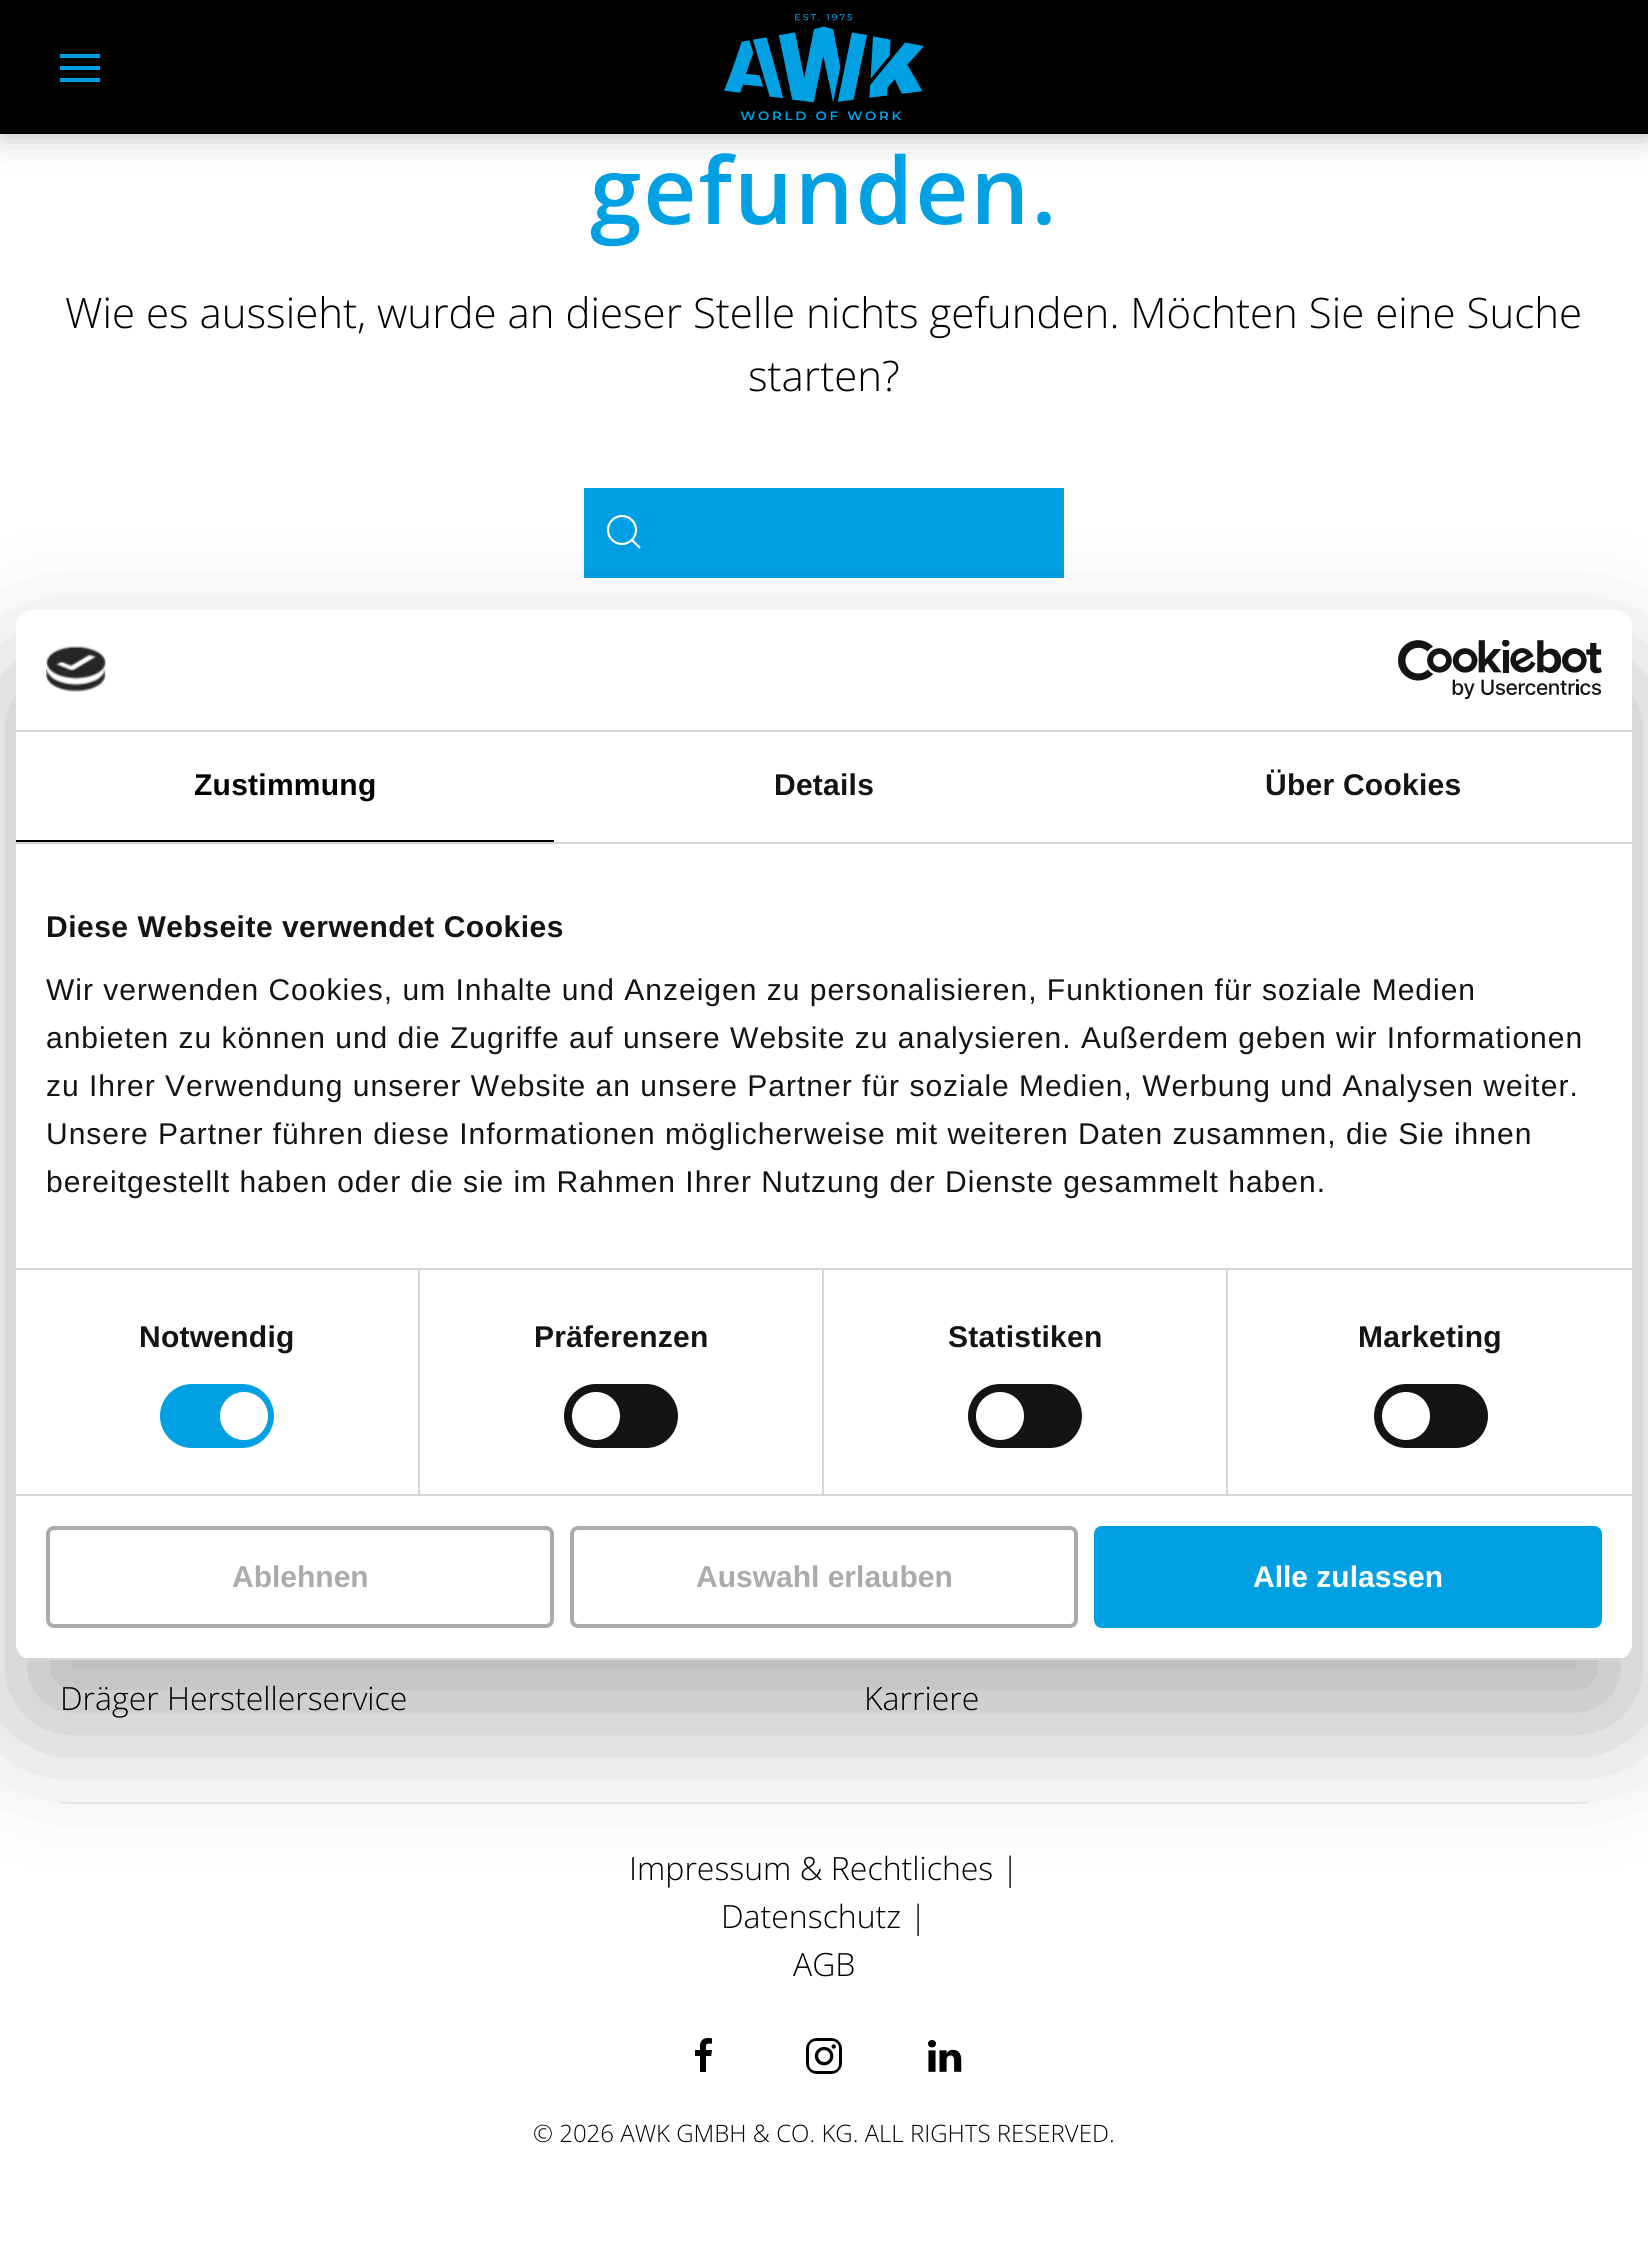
import math
import cairo

surface = cairo.ImageSurface(cairo.FORMAT_RGB24, 1648, 2268)
ctx = cairo.Context(surface)
options = cairo.FontOptions()
options.set_hint_metrics(cairo.HINT_METRICS_OFF)
options.set_hint_style(cairo.HINT_STYLE_NONE)
ctx.set_font_options(options)
ctx.set_miter_limit(4)


def set_color(code):
    ctx.set_source_rgb(*(v / 255 for v in bytes.fromhex(code[-6:])))


def draw_text(x, y, s, family, size, color, bold=False, italic=False):
    ctx.select_font_face(family, cairo.FONT_SLANT_ITALIC if italic else cairo.FONT_SLANT_NORMAL, cairo.FONT_WEIGHT_BOLD if bold else cairo.FONT_WEIGHT_NORMAL)
    ctx.set_font_size(size)
    set_color(color)
    ctx.move_to(x, y)
    ctx.show_text(s)


def draw_spaced(x, y, s, letter, word):
    ctx.move_to(x, y)
    for ch in s:
        ctx.show_text(ch)
        ctx.rel_move_to(letter + word * (ch == ' '), 0)


def fill_rect(x, y, w, h, color):
    set_color(color)
    ctx.rectangle(x, y, w, h)
    ctx.fill()


def rounded_rect(x, y, w, h, r):
    ctx.new_sub_path()
    for i, (u, v) in enumerate([(x + w - r, y + h - r), (x + r, y + h - r), (x + r, y + r), (x + w - r, y + r)]):
        ctx.arc(u, v, r, i * math.pi / 2, (i + 1) * math.pi / 2)
    ctx.close_path()


def draw_shadow(x, y, w, h, r, blur, alpha):
    ctx.push_group_with_content(cairo.CONTENT_ALPHA)
    ctx.set_operator(cairo.OPERATOR_SOURCE)
    for i in range(15, -16, -2):
        e = blur * i / 6
        if min(w, h) + 2 * e > 0:
            ctx.set_source_rgba(0, 0, 0, alpha * math.erfc((i - 1) / 8.5) / 2)
            rounded_rect(x - e, y - e, w + 2 * e, h + 2 * e, max(0, min(r + e + blur * .6, min(w, h) / 2 + e)))
            ctx.fill()
    ctx.mask(ctx.pop_group())


def draw_image(path, x, y, w, h):
    ctx.save()
    ctx.set_source_surface(cairo.ImageSurface.create_from_png(path), x, y)
    ctx.rectangle(x, y, w, h)
    ctx.fill()
    ctx.restore()


set_color("#ffffff")
ctx.paint()
set_color("#000000")
draw_shadow(2, 2, 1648, 134, 0, 16, 0.26)
fill_rect(0, 0, 1648, 134, "#000000")
fill_rect(60, 54, 40, 4, "#009fe3")
fill_rect(60, 66, 40, 4, "#009fe3")
fill_rect(60, 78, 40, 4, "#009fe3")
draw_image("assets/img1.png", 724, 14, 200, 106)
ctx.select_font_face("Open Sans SemiBold")
ctx.set_font_size(92.5)
set_color("#00a0e3")
draw_spaced(590, 224, "gefunden.", 2, 0)
draw_text(65, 328, "Wie es aussieht, wurde an dieser Stelle nichts gefunden. Möchten Sie eine Suche", "Open Sans Light", 42, "#000000")
draw_text(748, 391, "starten?", "Open Sans Light", 42, "#000000")
fill_rect(584, 488, 480, 90, "#009fe3")
ctx.new_path()
ctx.arc(622, 530, 14, 0, 2 * math.pi)
set_color("#ffffff")
ctx.set_line_width(2.2)
ctx.stroke()
ctx.new_path()
ctx.move_to(632, 540)
ctx.line_to(640, 548)
ctx.close_path()
ctx.stroke()
draw_text(60, 1710, "Dräger Herstellerservice", "Open Sans Light", 32, "#000000")
draw_text(864, 1710, "Karriere", "Open Sans Light", 32, "#000000")
fill_rect(60, 1802, 1528, 2, "#eeeeee")
draw_text(629, 1880, "Impressum & Rechtliches |", "Open Sans Light", 32, "#000000")
draw_text(721, 1928, "Datenschutz |", "Open Sans Light", 32, "#000000")
draw_text(793, 1976, "AGB", "Open Sans Light", 32, "#000000")
draw_image("assets/img2.png", 695, 2038, 17, 34)
draw_image("assets/img3.png", 806, 2038, 36, 36)
draw_image("assets/img4.png", 928, 2040, 34, 32)
draw_text(533, 2142, "© 2026 AWK GMBH & CO. KG. ALL RIGHTS RESERVED.", "Open Sans Light", 24, "#000000")
set_color("#000000")
draw_shadow(16, 674, 1616, 1050, 16, 68, 0.3)
set_color("#ffffff")
rounded_rect(16, 610, 1616, 1050, 16)
ctx.fill()
fill_rect(16, 730, 1616, 2, "#d6d6d6")
draw_image("assets/img5.png", 46, 646, 60, 46)
draw_image("assets/img6.png", 1398, 640, 204, 60)
fill_rect(16, 842, 1616, 2, "#d6d6d6")
fill_rect(16, 840, 538, 2, "#000000")
ctx.select_font_face("Liberation Sans", cairo.FONT_SLANT_NORMAL, cairo.FONT_WEIGHT_BOLD)
ctx.set_font_size(30)
draw_spaced(194, 795, "Zustimmung", 0.25, 0)
set_color("#141414")
draw_spaced(774, 795, "Details", 0.25, 0)
draw_spaced(1265, 795, "Über Cookies", 0.25, 0)
fill_rect(16, 1268, 1616, 2, "#d6d6d6")
set_color("#141414")
draw_spaced(46, 937, "Diese Webseite verwendet Cookies", 0.5, 0)
ctx.select_font_face("Liberation Sans")
draw_spaced(46, 1000, "Wir verwenden Cookies, um Inhalte und Anzeigen zu personalisieren, Funktionen für soziale Medien", 1, 0)
draw_spaced(46, 1048, "anbieten zu können und die Zugriffe auf unsere Website zu analysieren. Außerdem geben wir Informationen", 1, 0)
draw_spaced(46, 1096, "zu Ihrer Verwendung unserer Website an unsere Partner für soziale Medien, Werbung und Analysen weiter.", 1, 0)
draw_spaced(46, 1144, "Unsere Partner führen diese Informationen möglicherweise mit weiteren Daten zusammen, die Sie ihnen", 1, 0)
draw_spaced(46, 1192, "bereitgestellt haben oder die sie im Rahmen Ihrer Nutzung der Dienste gesammelt haben.", 1, 0)
fill_rect(16, 1494, 1616, 2, "#d6d6d6")
fill_rect(418, 1270, 2, 224, "#d6d6d6")
ctx.select_font_face("Liberation Sans", cairo.FONT_SLANT_NORMAL, cairo.FONT_WEIGHT_BOLD)
set_color("#141414")
draw_spaced(139, 1347, "Notwendig", 0.25, 0)
set_color("#00a0e3")
rounded_rect(160, 1384, 114, 64, 32)
ctx.fill()
set_color("#ffffff")
ctx.arc(244, 1416, 24, 0, 2 * math.pi)
ctx.fill()
fill_rect(822, 1270, 2, 224, "#d6d6d6")
set_color("#141414")
draw_spaced(534, 1347, "Präferenzen", 0.25, 0)
rounded_rect(564, 1384, 114, 64, 32)
ctx.fill()
set_color("#ffffff")
ctx.arc(596, 1416, 24, 0, 2 * math.pi)
ctx.fill()
fill_rect(1226, 1270, 2, 224, "#d6d6d6")
set_color("#141414")
draw_spaced(948, 1347, "Statistiken", 0.25, 0)
rounded_rect(968, 1384, 114, 64, 32)
ctx.fill()
set_color("#ffffff")
ctx.arc(1000, 1416, 24, 0, 2 * math.pi)
ctx.fill()
set_color("#141414")
draw_spaced(1358, 1347, "Marketing", 0.25, 0)
rounded_rect(1374, 1384, 114, 64, 32)
ctx.fill()
set_color("#ffffff")
ctx.arc(1406, 1416, 24, 0, 2 * math.pi)
ctx.fill()
ctx.save()
rounded_rect(16, 610, 1616, 1050, 16)
ctx.clip()
fill_rect(16, 1658, 1616, 2, "#d6d6d6")
ctx.restore()
rounded_rect(48, 1528, 504, 98, 6)
set_color("#ababab")
ctx.set_line_width(4)
ctx.stroke()
draw_text(232, 1587, "Ablehnen", "Liberation Sans", 30, "#ababab", bold=True)
rounded_rect(572, 1528, 504, 98, 6)
ctx.stroke()
draw_text(696, 1587, "Auswahl erlauben", "Liberation Sans", 30, "#ababab", bold=True)
set_color("#00a0e3")
rounded_rect(1096, 1528, 504, 98, 6)
ctx.fill_preserve()
ctx.stroke()
draw_text(1253, 1587, "Alle zulassen", "Liberation Sans", 30, "#ffffff", bold=True)
surface.write_to_png("output.png")
